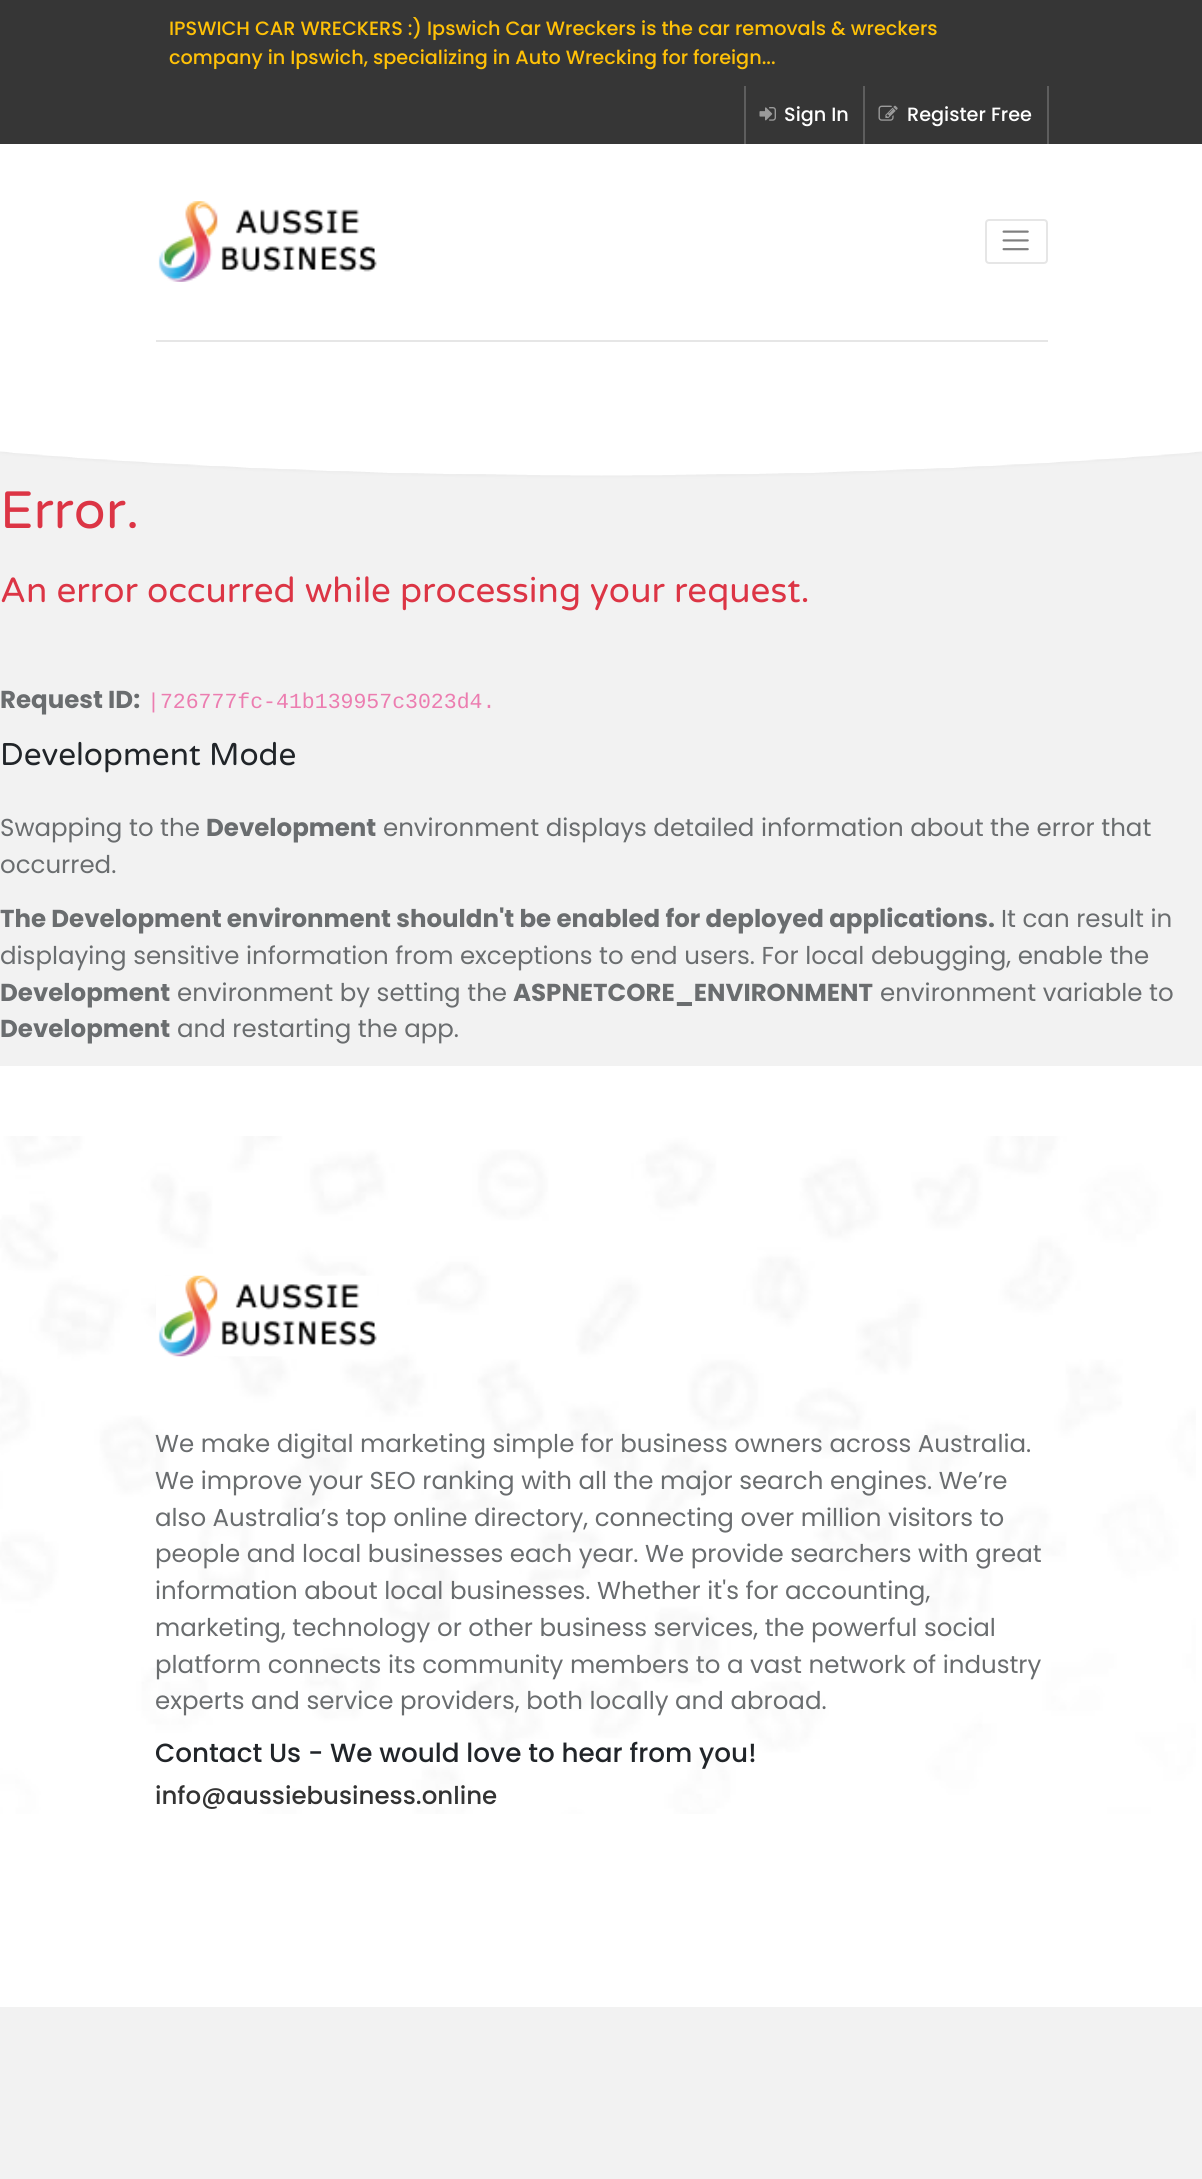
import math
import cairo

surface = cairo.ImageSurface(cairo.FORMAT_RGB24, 1202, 2179)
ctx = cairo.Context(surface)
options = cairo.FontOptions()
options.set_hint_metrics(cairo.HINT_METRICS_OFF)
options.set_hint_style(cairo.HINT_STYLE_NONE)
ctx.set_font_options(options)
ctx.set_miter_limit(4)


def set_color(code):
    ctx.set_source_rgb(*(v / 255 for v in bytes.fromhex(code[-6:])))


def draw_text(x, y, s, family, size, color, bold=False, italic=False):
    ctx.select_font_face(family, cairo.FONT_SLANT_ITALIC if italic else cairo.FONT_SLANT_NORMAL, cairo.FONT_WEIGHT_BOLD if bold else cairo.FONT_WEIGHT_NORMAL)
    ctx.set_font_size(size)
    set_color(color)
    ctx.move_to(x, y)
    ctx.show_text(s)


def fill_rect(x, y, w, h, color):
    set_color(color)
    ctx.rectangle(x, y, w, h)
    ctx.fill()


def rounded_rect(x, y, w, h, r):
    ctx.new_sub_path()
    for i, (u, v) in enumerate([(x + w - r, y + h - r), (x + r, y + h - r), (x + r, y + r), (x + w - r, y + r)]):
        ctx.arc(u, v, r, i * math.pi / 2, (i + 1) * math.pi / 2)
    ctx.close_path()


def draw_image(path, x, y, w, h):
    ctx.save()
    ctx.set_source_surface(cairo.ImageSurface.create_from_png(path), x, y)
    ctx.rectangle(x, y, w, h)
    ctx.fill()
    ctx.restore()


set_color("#f2f2f2")
ctx.paint()
fill_rect(0, 144, 1202, 308, "#ffffff")
fill_rect(0, 0, 1202, 144, "#363636")
draw_text(169, 35, "IPSWICH CAR WRECKERS :) Ipswich Car Wreckers is the car removals & wreckers", "Poppins Medium", 19.25, "#ffc107")
draw_text(169, 64, "company in Ipswich, specializing in Auto Wrecking for foreign...", "Poppins Medium", 19.25, "#ffc107")
fill_rect(744, 86, 2, 58, "#5e5e5e")
draw_image("assets/img1.png", 759, 107, 17, 14)
draw_text(784, 121, "Sign In", "Poppins Medium", 19.25, "#ffffff")
fill_rect(1047, 86, 2, 58, "#5e5e5e")
fill_rect(863, 86, 2, 58, "#5e5e5e")
draw_image("assets/img2.png", 878, 105, 20, 16)
draw_text(907, 121, "Register Free", "Poppins Medium", 19.25, "#ffffff")
fill_rect(156, 340, 892, 2, "#e6e6e6")
draw_image("assets/img3.png", 158, 201, 219, 81)
rounded_rect(986, 220, 61, 43, 3)
ctx.stroke()
draw_image("assets/img4.png", 1002, 230, 27, 21)
draw_image("assets/img5.png", 0, 451, 1202, 30)
draw_text(0, 528, "Error.", "Varela Round", 52.5, "#dc3545")
draw_text(0, 602, "An error occurred while processing your request.", "Varela Round", 35, "#dc3545")
draw_text(0, 708, "Request ID:", "Poppins", 24.5, "#6a6d6f", bold=True)
draw_text(147, 708, "|726777fc-41b139957c3023d4.", "Liberation Mono", 21.5, "#ec7db0")
draw_text(0, 765, "Development Mode", "Varela Round", 31.5, "#212529")
draw_text(0, 836, "Swapping to the", "Poppins", 24.5, "#6a6d6f")
draw_text(206, 836, "Development", "Poppins", 24.5, "#6a6d6f", bold=True)
draw_text(383, 836, "environment displays detailed information about the error that", "Poppins", 24.5, "#6a6d6f")
draw_text(0, 873, "occurred.", "Poppins", 24.5, "#6a6d6f")
draw_text(0, 927, "The Development environment shouldn't be enabled for deployed applications.", "Poppins", 24.5, "#6a6d6f", bold=True)
draw_text(1001, 927, "It can result in", "Poppins", 24.5, "#6a6d6f")
draw_text(0, 964, "displaying sensitive information from exceptions to end users. For local debugging, enable the", "Poppins", 24.5, "#6a6d6f")
draw_text(0, 1001, "Development", "Poppins", 24.5, "#6a6d6f", bold=True)
draw_text(177, 1001, "environment by setting the", "Poppins", 24.5, "#6a6d6f")
draw_text(513, 1001, "ASPNETCORE_ENVIRONMENT", "Poppins", 24.5, "#6a6d6f", bold=True)
draw_text(880, 1001, "environment variable to", "Poppins", 24.5, "#6a6d6f")
draw_text(0, 1037, "Development", "Poppins", 24.5, "#6a6d6f", bold=True)
draw_text(177, 1037, "and restarting the app.", "Poppins", 24.5, "#6a6d6f")
fill_rect(0, 1066, 1202, 941, "#ffffff")
draw_image("assets/img6.png", 0, 1136, 1196, 678)
draw_image("assets/img7.png", 156, 1275, 221, 82)
draw_text(155, 1452, "We make digital marketing simple for business owners across Australia.", "Poppins", 24.5, "#6a6d6f")
draw_text(155, 1489, "We improve your SEO ranking with all the major search engines. We’re", "Poppins", 24.5, "#6a6d6f")
draw_text(155, 1526, "also Australia’s top online directory, connecting over million visitors to", "Poppins", 24.5, "#6a6d6f")
draw_text(155, 1562, "people and local businesses each year. We provide searchers with great", "Poppins", 24.5, "#6a6d6f")
draw_text(155, 1599, "information about local businesses. Whether it's for accounting,", "Poppins", 24.5, "#6a6d6f")
draw_text(155, 1636, "marketing, technology or other business services, the powerful social", "Poppins", 24.5, "#6a6d6f")
draw_text(155, 1673, "platform connects its community members to a vast network of industry", "Poppins", 24.5, "#6a6d6f")
draw_text(155, 1709, "experts and service providers, both locally and abroad.", "Poppins", 24.5, "#6a6d6f")
draw_text(155, 1762, "Contact Us - We would love to hear from you!", "Poppins Medium", 26.25, "#212529")
draw_text(155, 1804, "info@aussiebusiness.online", "Poppins Medium", 24.5, "#333333")
surface.write_to_png("output.png")
